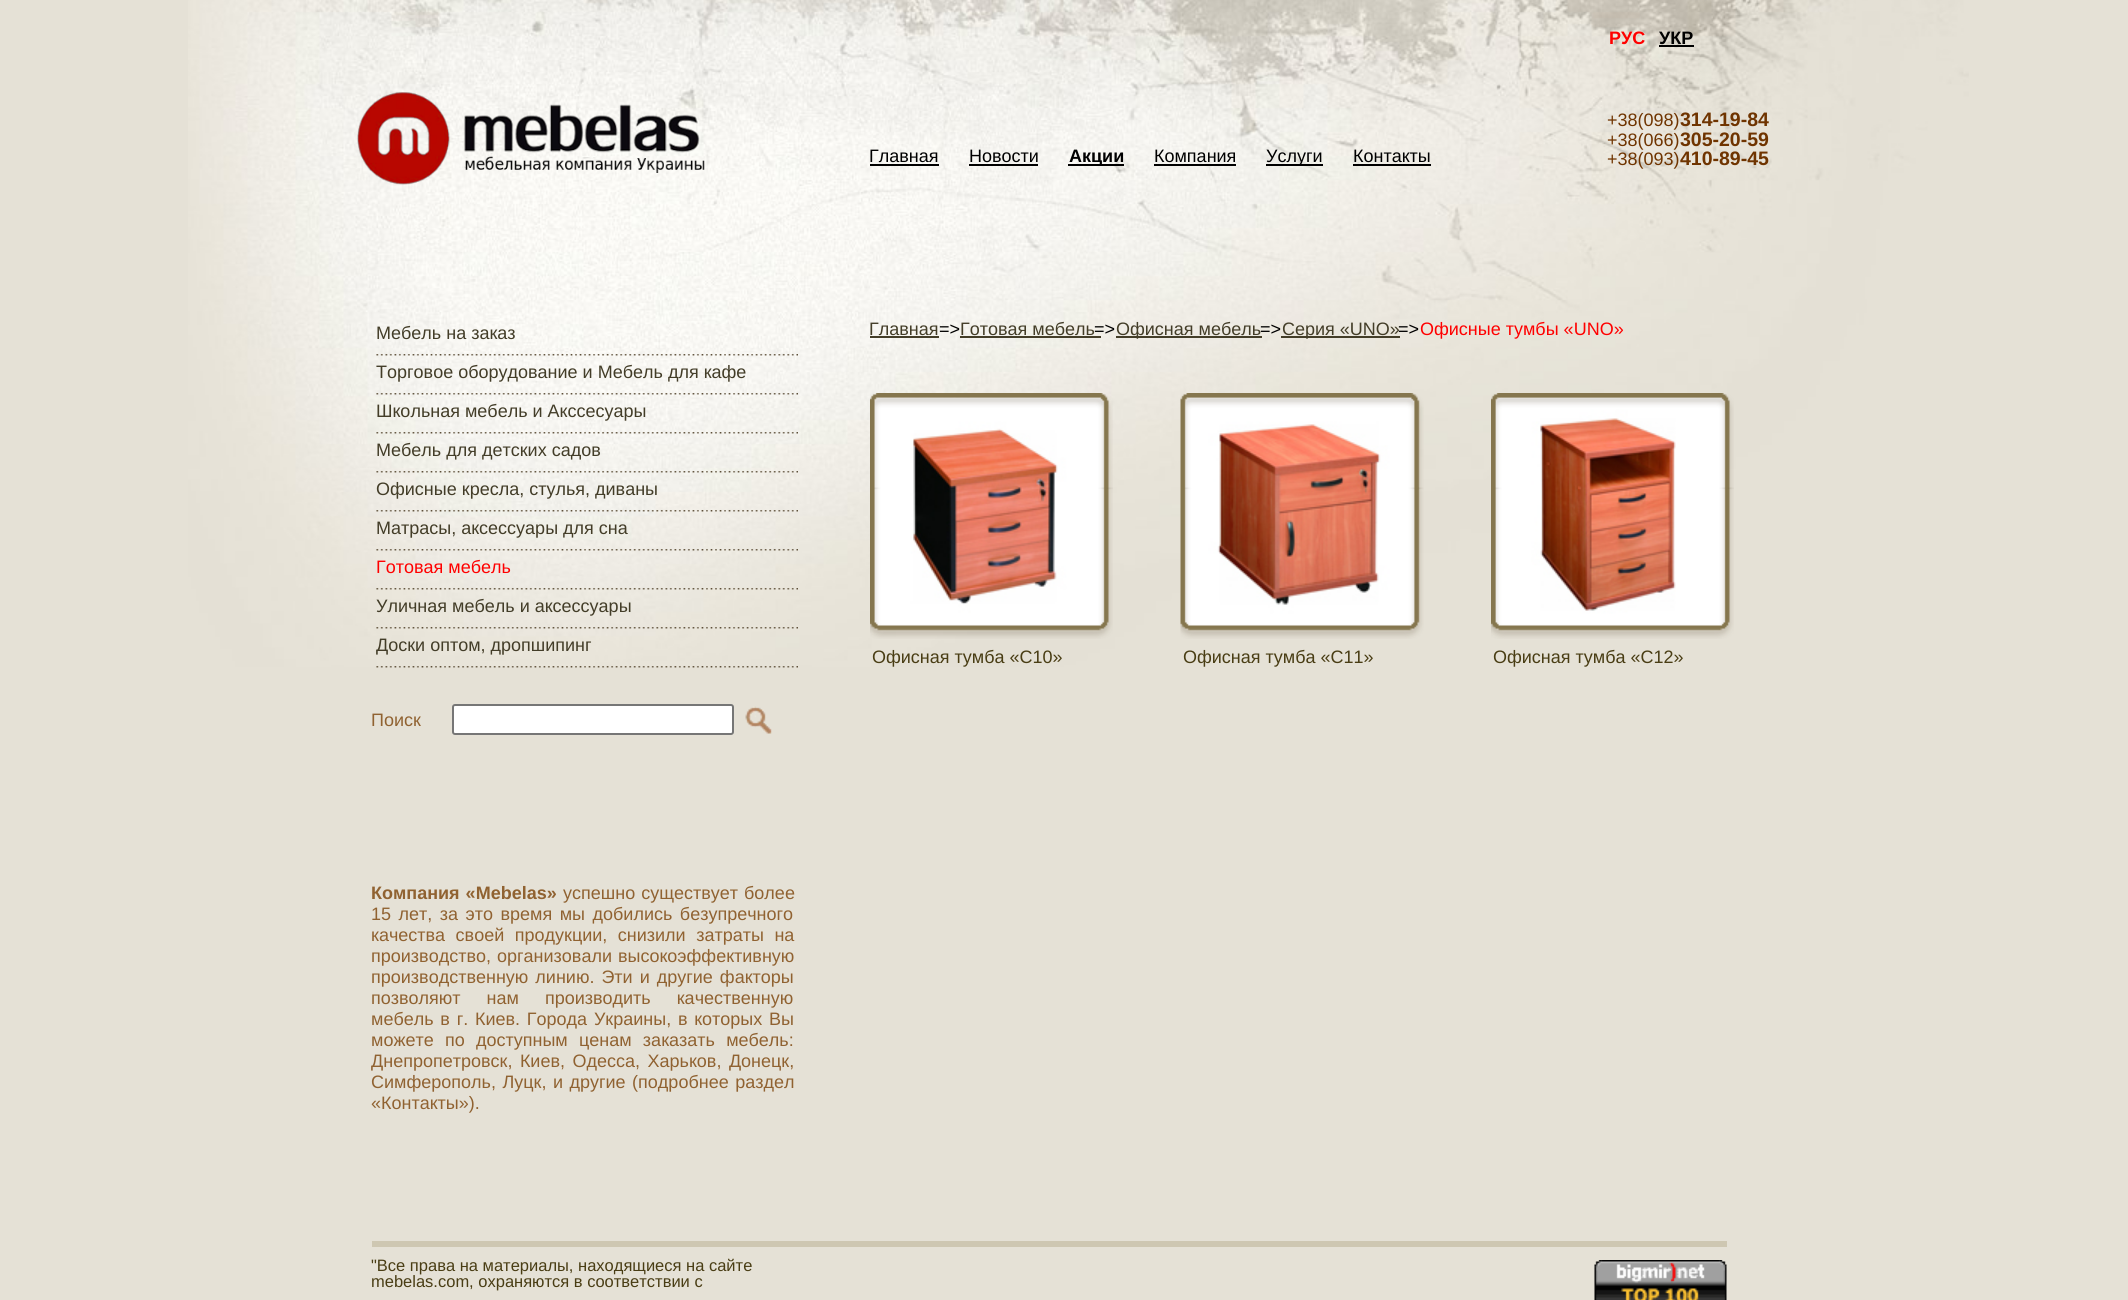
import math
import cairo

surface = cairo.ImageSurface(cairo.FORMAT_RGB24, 2128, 1300)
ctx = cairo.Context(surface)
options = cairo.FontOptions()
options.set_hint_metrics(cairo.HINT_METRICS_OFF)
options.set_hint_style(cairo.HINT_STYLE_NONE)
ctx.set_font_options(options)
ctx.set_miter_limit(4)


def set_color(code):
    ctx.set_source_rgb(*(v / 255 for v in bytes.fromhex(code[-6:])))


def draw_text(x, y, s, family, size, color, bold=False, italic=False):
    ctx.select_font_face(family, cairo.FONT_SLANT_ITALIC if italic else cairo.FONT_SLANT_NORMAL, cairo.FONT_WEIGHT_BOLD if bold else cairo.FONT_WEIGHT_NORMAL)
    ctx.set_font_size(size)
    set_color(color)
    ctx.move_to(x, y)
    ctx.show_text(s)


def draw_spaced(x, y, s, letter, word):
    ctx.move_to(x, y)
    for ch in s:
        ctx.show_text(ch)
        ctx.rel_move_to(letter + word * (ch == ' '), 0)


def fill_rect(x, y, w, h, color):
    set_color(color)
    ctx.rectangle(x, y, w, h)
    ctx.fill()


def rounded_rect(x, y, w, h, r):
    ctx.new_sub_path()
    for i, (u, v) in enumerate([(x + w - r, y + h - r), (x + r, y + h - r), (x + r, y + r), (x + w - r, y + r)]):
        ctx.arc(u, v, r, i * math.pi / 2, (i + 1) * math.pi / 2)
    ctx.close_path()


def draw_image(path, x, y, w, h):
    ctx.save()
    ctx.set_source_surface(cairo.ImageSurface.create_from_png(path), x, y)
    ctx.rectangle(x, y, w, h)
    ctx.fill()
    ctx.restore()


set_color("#e5e1d6")
ctx.paint()
draw_image("assets/img1.png", 188, 0, 1781, 667)
draw_text(1609, 44, "РУС", "Liberation Sans", 18, "#ff0000", bold=True)
draw_text(1659, 44, "УКР", "Liberation Sans", 18, "#000000", bold=True)
fill_rect(1659, 45, 35, 2, "#000000")
draw_image("assets/img2.png", 357, 92, 348, 93)
draw_text(869, 162, "Главная", "Liberation Sans", 18, "#000000")
fill_rect(870, 164, 69, 2, "#000000")
draw_text(969, 162, "Новости", "Liberation Sans", 18, "#000000")
fill_rect(969, 164, 69, 2, "#000000")
fill_rect(1068, 164, 56, 2, "#000000")
draw_text(1069, 162, "Акции", "Liberation Sans", 18, "#000000", bold=True)
draw_text(1154, 162, "Компания", "Liberation Sans", 18, "#000000")
fill_rect(1154, 164, 82, 2, "#000000")
fill_rect(1266, 164, 57, 2, "#000000")
draw_text(1266, 162, "Услуги", "Liberation Sans", 18, "#000000")
draw_text(1353, 162, "Контакты", "Liberation Sans", 18, "#000000")
fill_rect(1353, 164, 78, 2, "#000000")
draw_text(1607, 126, "+38(098)", "Liberation Sans", 18, "#6f3400")
draw_text(1680, 126, "314-19-84", "Liberation Sans", 19.5, "#6f3400", bold=True)
draw_text(1607, 146, "+38(066)", "Liberation Sans", 18, "#6f3400")
draw_text(1680, 146, "305-20-59", "Liberation Sans", 19.5, "#6f3400", bold=True)
draw_text(1607, 165, "+38(093)", "Liberation Sans", 18, "#6f3400")
draw_text(1680, 165, "410-89-45", "Liberation Sans", 19.5, "#6f3400", bold=True)
draw_image("assets/img3.png", 376, 354, 422, 2)
draw_text(376, 339, "Мебель на заказ", "Liberation Sans", 18, "#433d28")
draw_image("assets/img4.png", 376, 393, 422, 2)
draw_text(376, 378, "Торговое оборудование и Мебель для кафе", "Liberation Sans", 18, "#433d28")
draw_image("assets/img5.png", 376, 432, 422, 2)
draw_text(376, 417, "Школьная мебель и Акссесуары", "Liberation Sans", 18, "#433d28")
draw_image("assets/img6.png", 376, 471, 422, 2)
draw_text(376, 456, "Мебель для детских садов", "Liberation Sans", 18, "#433d28")
draw_image("assets/img7.png", 376, 510, 422, 2)
draw_text(376, 495, "Офисные кресла, стулья, диваны", "Liberation Sans", 18, "#433d28")
draw_image("assets/img8.png", 376, 549, 422, 2)
draw_text(376, 534, "Матраcы, аксессуары для сна", "Liberation Sans", 18, "#433d28")
draw_image("assets/img9.png", 376, 588, 422, 2)
draw_text(376, 573, "Готовая мебель", "Liberation Sans", 18, "#ff0000")
draw_image("assets/img10.png", 376, 627, 422, 2)
draw_text(376, 612, "Уличная мебель и аксессуары", "Liberation Sans", 18, "#433d28")
draw_image("assets/img11.png", 376, 666, 422, 2)
draw_text(376, 651, "Доски оптом, дропшипинг", "Liberation Sans", 18, "#433d28")
draw_text(371, 726, "Поиск", "Liberation Sans", 18, "#906231")
set_color("#ffffff")
rounded_rect(453, 705, 280, 29, 2)
ctx.fill_preserve()
set_color("#767676")
ctx.stroke()
draw_image("assets/img12.png", 745, 706, 27, 28)
ctx.select_font_face("Liberation Sans", cairo.FONT_SLANT_NORMAL, cairo.FONT_WEIGHT_BOLD)
set_color("#906231")
draw_spaced(371, 899, "Компания «Mebelas»", 0, 1)
ctx.select_font_face("Liberation Sans")
draw_spaced(563, 899, "успешно существует более", 0, 1)
draw_spaced(371, 920, "15 лет, за это время мы добились безупречного", 0, 2.5)
draw_spaced(371, 941, "качества своей продукции, снизили затраты на", 0, 5.5)
draw_spaced(371, 962, "производство, организовали высокоэффективную", 0, 1)
draw_spaced(371, 983, "производственную линию. Эти и другие факторы", 0, 2)
draw_spaced(371, 1004, "позволяют нам производить качественную", 0, 21)
draw_spaced(371, 1025, "мебель в г. Киев. Города Украины, в которых Вы", 0, 1.75)
draw_spaced(371, 1046, "можете по доступным ценам заказать мебель:", 0, 6.25)
draw_spaced(371, 1067, "Днепропетровск, Киев, Одесса, Харьков, Донецк,", 0, 2.5)
draw_spaced(371, 1088, "Симферополь, Луцк, и другие (подробнее раздел", 0, 1.5)
draw_text(371, 1109, "«Контакты»).", "Liberation Sans", 18, "#906231")
draw_text(869, 335, "Главная", "Liberation Sans", 18, "#433d28")
fill_rect(870, 336, 69, 2, "#433d28")
draw_text(939, 335, "=>", "Liberation Sans", 18, "#000000")
draw_text(960, 335, "Готовая мебель", "Liberation Sans", 18, "#433d28")
fill_rect(960, 336, 141, 2, "#433d28")
draw_text(1094, 335, "=>", "Liberation Sans", 18, "#000000")
fill_rect(1116, 336, 146, 2, "#433d28")
draw_text(1116, 335, "Офисная мебель", "Liberation Sans", 18, "#433d28")
draw_text(1260, 335, "=>", "Liberation Sans", 18, "#000000")
fill_rect(1281, 336, 119, 2, "#433d28")
draw_text(1282, 335, "Серия «UNO»", "Liberation Sans", 18, "#433d28")
draw_text(1398, 335, "=>", "Liberation Sans", 18, "#000000")
draw_text(1420, 335, "Офисные тумбы «UNO»", "Liberation Sans", 18, "#ff0000")
draw_image("assets/img14.png", 874, 397, 230, 229)
draw_image("assets/img13.png", 870, 393, 243, 246)
draw_text(872, 663, "Офисная тумба «С10»", "Liberation Sans", 18, "#493d14")
draw_image("assets/img16.png", 1185, 397, 230, 229)
draw_image("assets/img15.png", 1180, 393, 244, 246)
draw_text(1183, 663, "Офисная тумба «С11»", "Liberation Sans", 18, "#493d14")
draw_image("assets/img18.png", 1495, 397, 230, 229)
draw_image("assets/img17.png", 1491, 393, 243, 246)
draw_text(1493, 663, "Офисная тумба «С12»", "Liberation Sans", 18, "#493d14")
fill_rect(372, 1241, 1355, 6, "#cec7b2")
draw_text(371, 1271, "\"Все права на материалы, находящиеся на сайте", "Liberation Sans", 16.5, "#493d14")
draw_text(371, 1287, "mebelas.com, охраняются в соответствии с", "Liberation Sans", 16.5, "#493d14")
draw_image("assets/img19.png", 1594, 1260, 133, 40)
surface.write_to_png("output.png")
